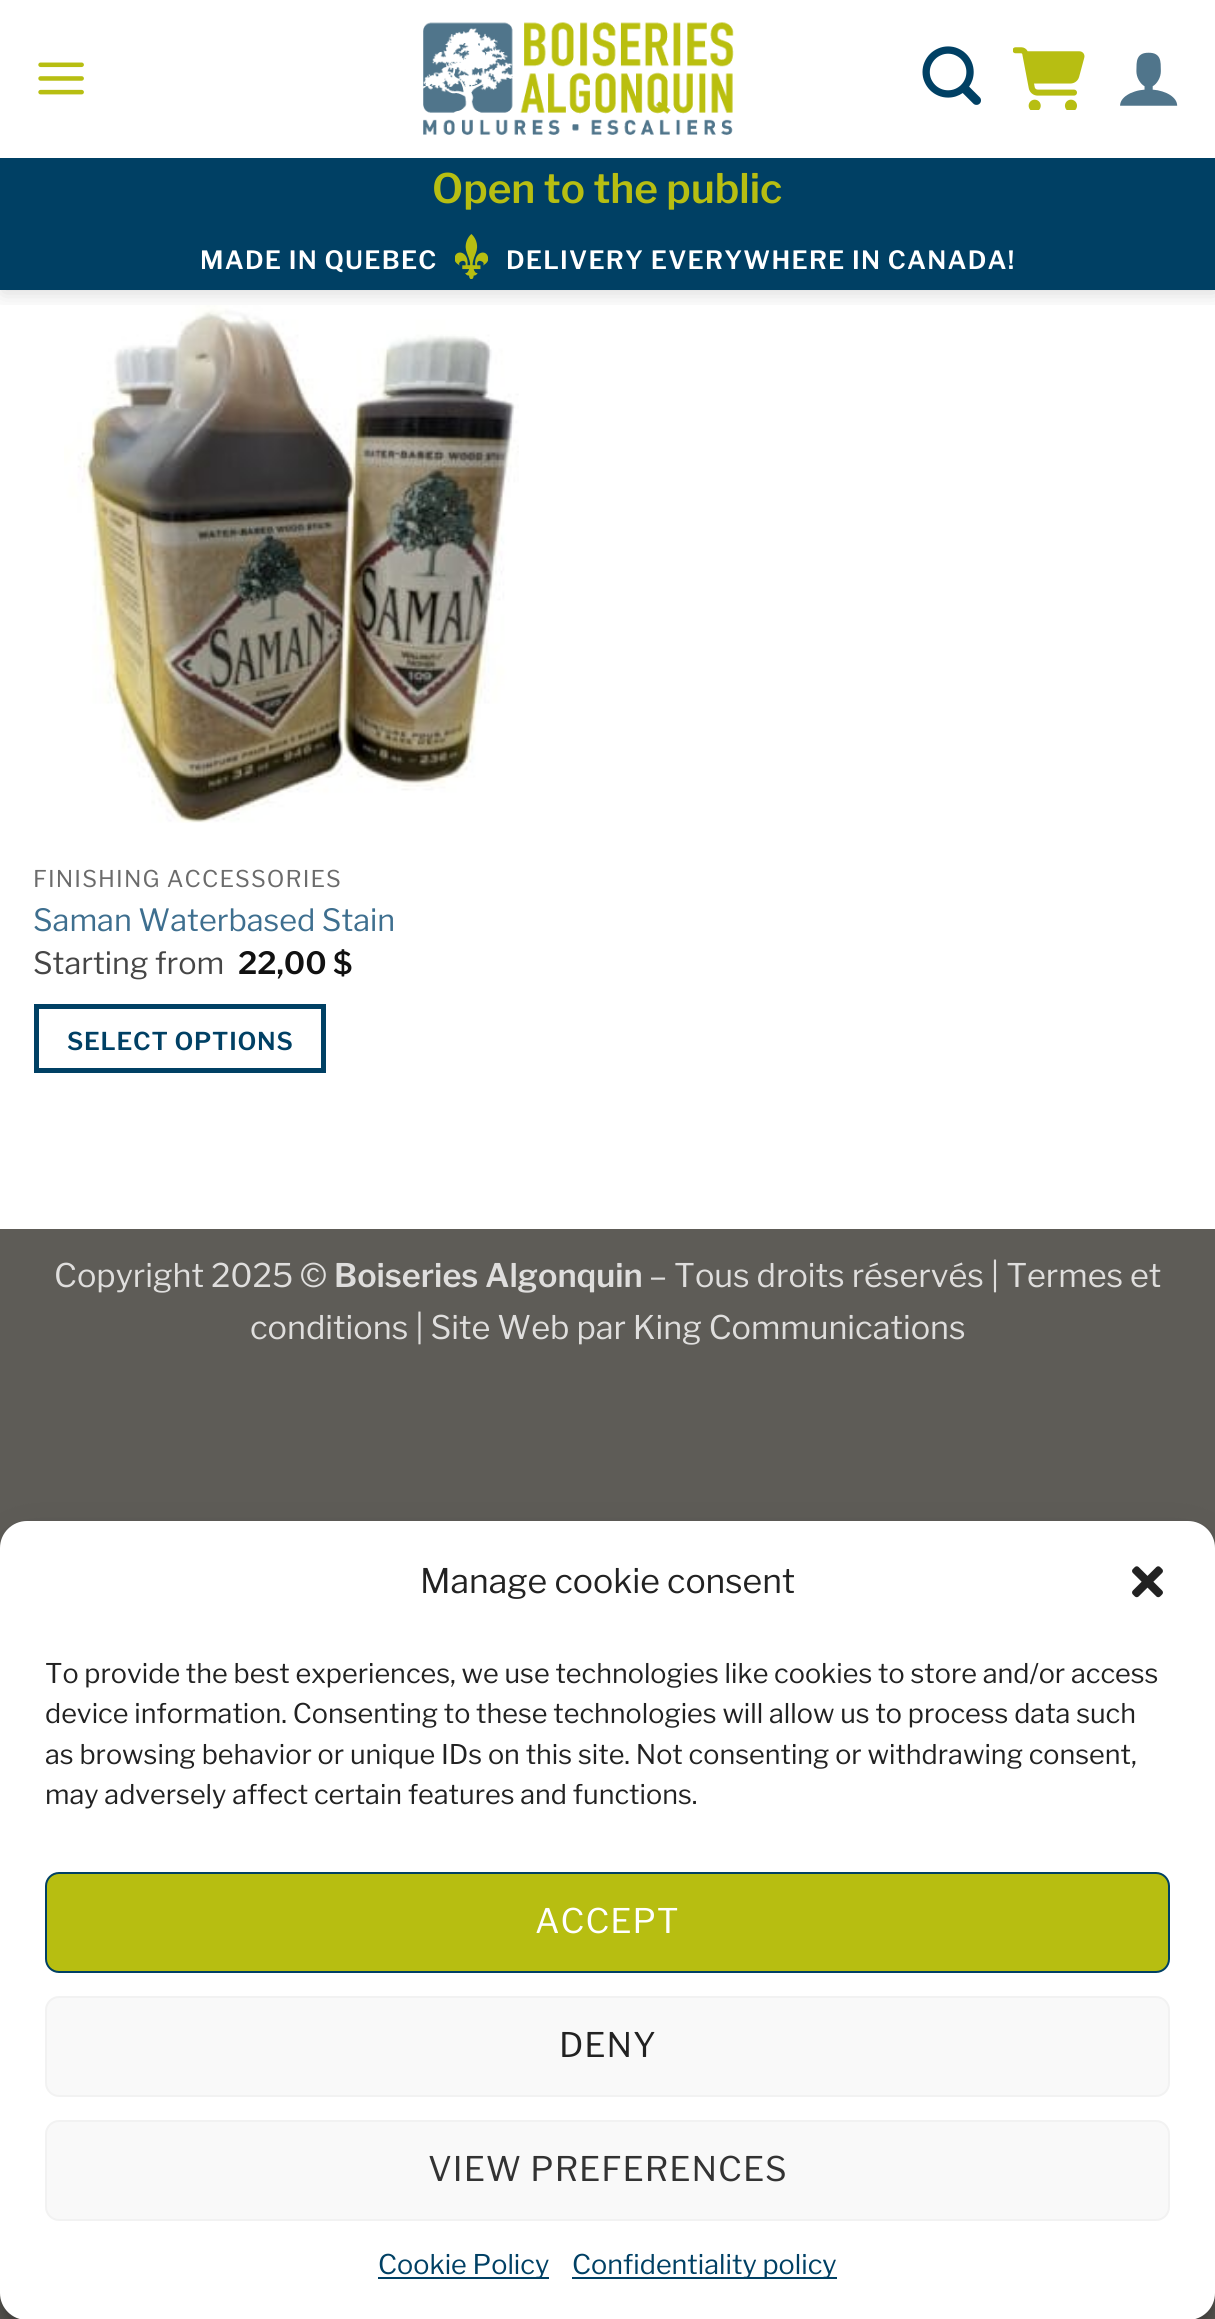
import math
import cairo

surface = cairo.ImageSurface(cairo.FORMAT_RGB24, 1215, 2319)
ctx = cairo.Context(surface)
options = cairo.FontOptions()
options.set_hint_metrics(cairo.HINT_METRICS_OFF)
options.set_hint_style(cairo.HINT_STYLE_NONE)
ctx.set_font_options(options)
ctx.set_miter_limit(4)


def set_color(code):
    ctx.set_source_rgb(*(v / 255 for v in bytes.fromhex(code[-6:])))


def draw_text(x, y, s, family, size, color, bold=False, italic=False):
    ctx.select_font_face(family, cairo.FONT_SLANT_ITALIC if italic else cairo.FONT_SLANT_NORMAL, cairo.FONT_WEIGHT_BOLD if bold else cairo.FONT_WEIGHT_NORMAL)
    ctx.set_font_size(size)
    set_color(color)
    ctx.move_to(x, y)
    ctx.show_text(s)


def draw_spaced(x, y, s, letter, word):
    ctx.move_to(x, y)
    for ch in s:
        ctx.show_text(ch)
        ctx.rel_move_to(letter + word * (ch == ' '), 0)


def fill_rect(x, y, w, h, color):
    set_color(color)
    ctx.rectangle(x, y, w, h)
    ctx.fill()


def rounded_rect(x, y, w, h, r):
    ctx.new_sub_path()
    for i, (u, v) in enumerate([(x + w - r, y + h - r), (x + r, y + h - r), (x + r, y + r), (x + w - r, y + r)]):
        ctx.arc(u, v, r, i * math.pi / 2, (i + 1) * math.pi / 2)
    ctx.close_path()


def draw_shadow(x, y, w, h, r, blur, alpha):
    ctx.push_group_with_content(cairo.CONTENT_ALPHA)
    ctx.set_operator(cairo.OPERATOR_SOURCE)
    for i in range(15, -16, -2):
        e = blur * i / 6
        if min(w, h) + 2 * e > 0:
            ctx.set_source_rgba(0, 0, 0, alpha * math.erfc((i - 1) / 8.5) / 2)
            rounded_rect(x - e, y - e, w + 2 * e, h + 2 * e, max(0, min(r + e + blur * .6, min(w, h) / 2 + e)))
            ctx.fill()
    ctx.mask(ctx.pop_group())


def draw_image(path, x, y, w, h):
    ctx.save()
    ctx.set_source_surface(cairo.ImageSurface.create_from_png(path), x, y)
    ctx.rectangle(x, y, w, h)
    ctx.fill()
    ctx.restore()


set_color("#5e5c57")
ctx.paint()
fill_rect(0, 0, 1215, 1229, "#ffffff")
draw_image("assets/img7.png", 64, 305, 455, 518)
ctx.save()
ctx.rectangle(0, 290, 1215, 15)
ctx.clip()
set_color("#000000")
draw_shadow(2, 2, 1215, 291, 0, 11, 0.15)
ctx.restore()
draw_image("assets/img1.png", 38, 62, 46, 33)
draw_image("assets/img2.png", 423, 22, 311, 113)
draw_image("assets/img3.png", 922, 46, 59, 59)
draw_image("assets/img4.png", 1013, 47, 72, 63)
draw_image("assets/img5.png", 1120, 52, 58, 54)
fill_rect(0, 158, 1215, 132, "#004064")
draw_text(432, 203, "Open to the public", "Libre Franklin SemiBold", 40.5, "#b7be12")
ctx.set_font_size(25.1)
set_color("#ffffff")
draw_spaced(200, 269, "MADE IN QUEBEC", 1.25, 0)
draw_image("assets/img6.png", 455, 234, 33, 45)
draw_spaced(506, 269, "DELIVERY EVERYWHERE IN CANADA!", 1.25, 0)
ctx.select_font_face("Libre Franklin")
ctx.set_font_size(23)
set_color("#6b6b6b")
draw_spaced(33, 887, "FINISHING ACCESSORIES", 1.15, 0)
draw_text(33, 931, "Saman Waterbased Stain", "Libre Franklin", 30.6, "#3e6f8f")
draw_text(33, 974, "Starting from", "Libre Franklin", 30.6, "#464646")
draw_text(238, 974, "22,00 $", "Libre Franklin SemiBold", 30.6, "#111111")
ctx.rectangle(36.5, 1006.5, 287, 64)
set_color("#004064")
ctx.set_line_width(5)
ctx.stroke()
ctx.set_font_size(24.5)
draw_spaced(67, 1050, "SELECT OPTIONS", 0.75, 0)
draw_text(54, 1287, "Copyright 2025 ©", "Libre Franklin", 32.4, "#dfdedd")
draw_text(334, 1287, "Boiseries Algonquin", "Libre Franklin SemiBold", 32.4, "#dfdedd")
draw_text(649, 1287, "– Tous droits réservés | Termes et", "Libre Franklin", 32.4, "#dfdedd")
draw_text(250, 1339, "conditions | Site Web par King Communications", "Libre Franklin", 32.4, "#dfdedd")
set_color("#000000")
draw_shadow(0, 1535, 1215, 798, 27, 7, 0.23)
draw_shadow(0, 1544, 1215, 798, 27, 22.5, 0.19)
set_color("#ffffff")
rounded_rect(0, 1521, 1215, 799, 27)
ctx.fill()
draw_text(420, 1593, "Manage cookie consent", "Libre Franklin", 33.75, "#222222")
draw_image("assets/img8.png", 1132, 1566, 31, 32)
draw_text(45, 1683, "To provide the best experiences, we use technologies like cookies to store and/or access", "Libre Franklin", 27, "#222222")
draw_text(45, 1723, "device information. Consenting to these technologies will allow us to process data such", "Libre Franklin", 27, "#222222")
draw_text(45, 1764, "as browsing behavior or unique IDs on this site. Not consenting or withdrawing consent,", "Libre Franklin", 27, "#222222")
draw_text(45, 1804, "may adversely affect certain features and functions.", "Libre Franklin", 27, "#222222")
set_color("#b7be11")
rounded_rect(46, 1873, 1123, 99, 13)
ctx.fill_preserve()
set_color("#004064")
ctx.set_line_width(2)
ctx.stroke()
ctx.set_font_size(33.75)
set_color("#ffffff")
draw_spaced(535, 1933, "ACCEPT", 1, 0)
set_color("#f9f9f9")
rounded_rect(46, 1997, 1123, 99, 13)
ctx.fill_preserve()
set_color("#f2f2f2")
ctx.stroke()
set_color("#222222")
draw_spaced(559, 2057, "DENY", 1, 0)
set_color("#f9f9f9")
rounded_rect(46, 2121, 1123, 99, 13)
ctx.fill_preserve()
set_color("#f2f2f2")
ctx.stroke()
set_color("#333333")
draw_spaced(428, 2181, "VIEW PREFERENCES", 1, 0)
fill_rect(378, 2277, 171, 2, "#004064")
draw_text(378, 2274, "Cookie Policy", "Libre Franklin", 27, "#004064")
fill_rect(572, 2277, 265, 2, "#004064")
draw_text(572, 2274, "Confidentiality policy", "Libre Franklin", 27, "#004064")
surface.write_to_png("output.png")
